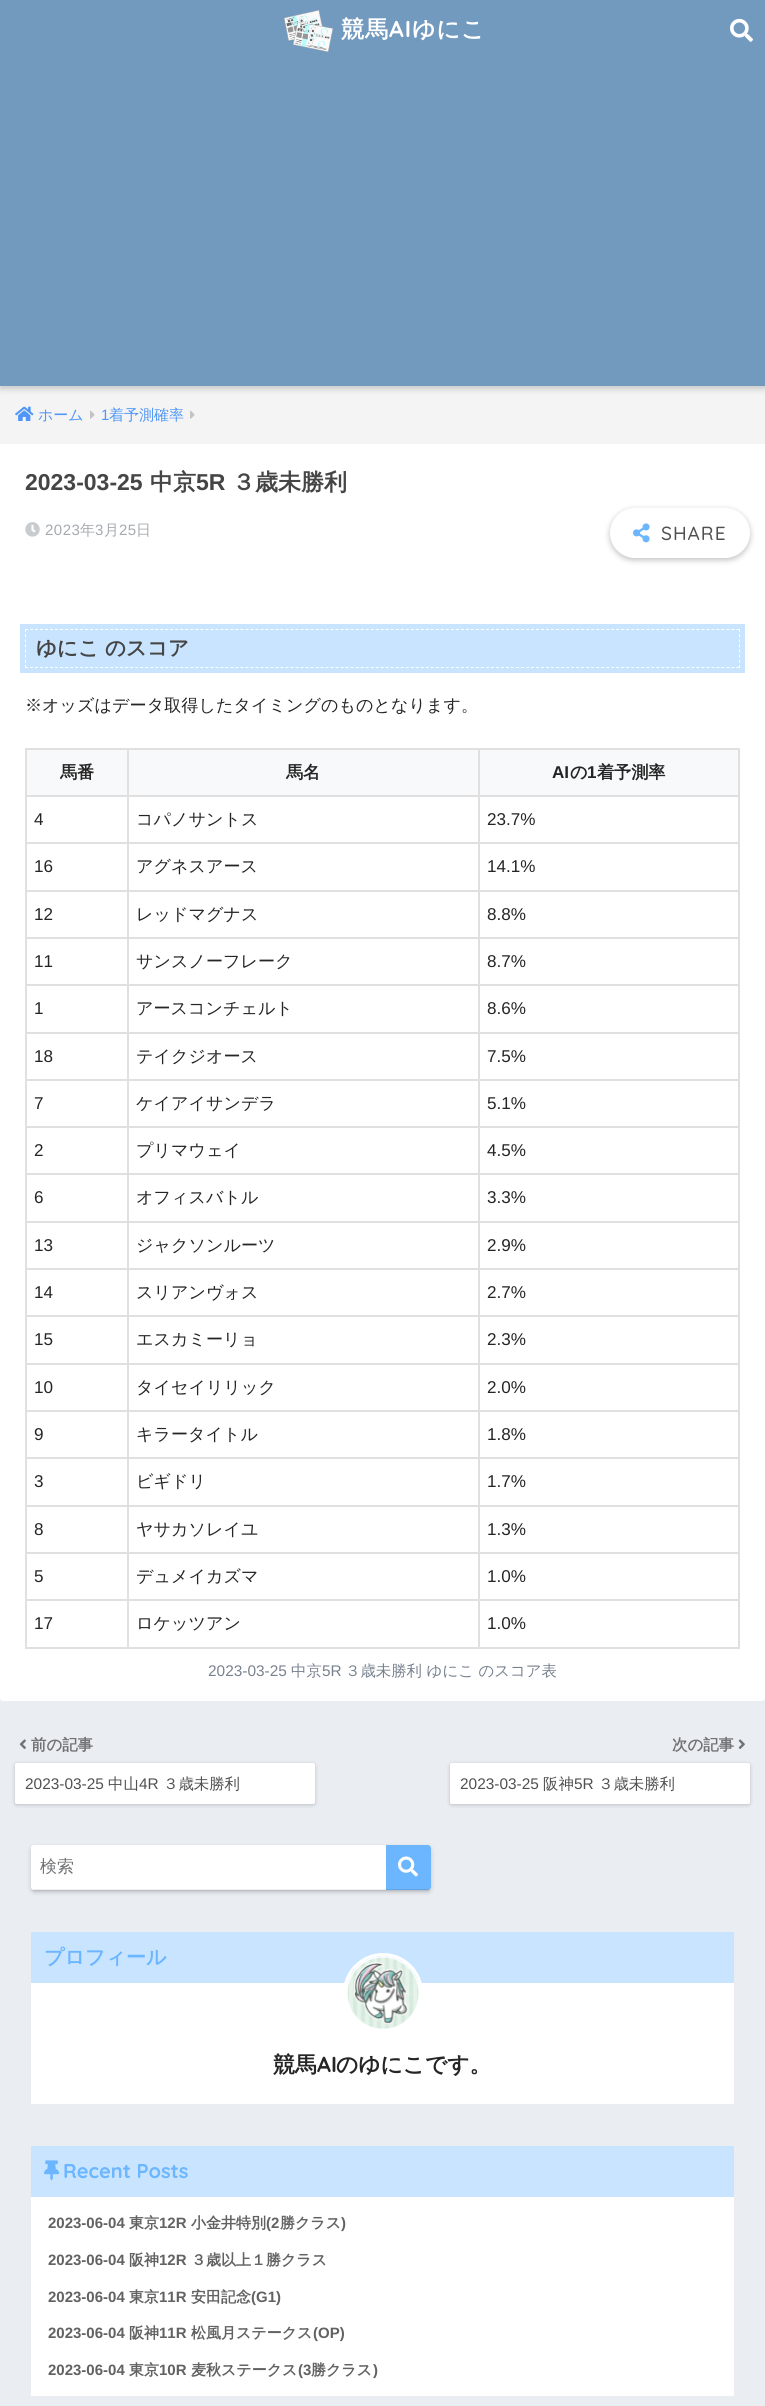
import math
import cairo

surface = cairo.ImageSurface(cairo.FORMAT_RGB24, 765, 2406)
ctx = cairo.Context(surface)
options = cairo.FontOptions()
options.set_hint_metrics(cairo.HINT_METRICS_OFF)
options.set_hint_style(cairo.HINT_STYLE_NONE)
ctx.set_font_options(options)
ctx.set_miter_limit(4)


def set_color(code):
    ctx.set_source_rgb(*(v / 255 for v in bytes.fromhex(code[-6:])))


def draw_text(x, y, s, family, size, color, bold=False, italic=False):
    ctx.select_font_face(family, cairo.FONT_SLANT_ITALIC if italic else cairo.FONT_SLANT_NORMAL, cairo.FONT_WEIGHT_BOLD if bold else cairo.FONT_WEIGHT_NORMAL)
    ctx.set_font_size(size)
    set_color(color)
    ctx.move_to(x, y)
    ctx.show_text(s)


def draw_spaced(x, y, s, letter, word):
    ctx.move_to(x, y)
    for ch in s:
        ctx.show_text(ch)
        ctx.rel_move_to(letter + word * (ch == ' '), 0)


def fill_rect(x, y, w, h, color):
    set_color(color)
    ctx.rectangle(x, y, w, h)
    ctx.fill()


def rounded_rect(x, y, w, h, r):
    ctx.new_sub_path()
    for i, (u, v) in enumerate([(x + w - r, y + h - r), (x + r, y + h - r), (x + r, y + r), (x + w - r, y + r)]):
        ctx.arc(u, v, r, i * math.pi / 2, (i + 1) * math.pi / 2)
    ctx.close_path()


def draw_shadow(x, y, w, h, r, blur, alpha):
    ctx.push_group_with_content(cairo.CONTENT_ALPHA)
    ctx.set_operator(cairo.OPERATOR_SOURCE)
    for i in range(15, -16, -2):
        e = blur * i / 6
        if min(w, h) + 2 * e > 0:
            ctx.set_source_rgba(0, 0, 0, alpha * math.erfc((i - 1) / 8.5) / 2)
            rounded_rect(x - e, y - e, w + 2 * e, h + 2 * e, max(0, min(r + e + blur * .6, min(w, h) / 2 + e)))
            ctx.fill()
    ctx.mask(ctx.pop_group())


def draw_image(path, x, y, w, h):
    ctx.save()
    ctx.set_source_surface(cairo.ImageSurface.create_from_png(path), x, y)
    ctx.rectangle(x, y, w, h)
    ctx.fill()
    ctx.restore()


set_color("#eaedf2")
ctx.paint()
set_color("#ffffff")
rounded_rect(0, 386, 765, 1315, 3)
ctx.fill()
fill_rect(0, 386, 765, 58, "#f4f4f4")
set_color("#000000")
draw_shadow(0, 3, 765, 386, 0, 3, 0.18)
fill_rect(0, 0, 765, 386, "#729abf")
draw_image("assets/img1.png", 284, 10, 49, 42)
ctx.select_font_face("WenQuanYi Zen Hei", cairo.FONT_SLANT_NORMAL, cairo.FONT_WEIGHT_BOLD)
ctx.set_font_size(23)
set_color("#ffffff")
draw_spaced(341, 37, "競馬", 1, 0)
ctx.select_font_face("Quicksand", cairo.FONT_SLANT_NORMAL, cairo.FONT_WEIGHT_BOLD)
draw_spaced(389, 37, "AI", 1, 0)
ctx.select_font_face("WenQuanYi Zen Hei", cairo.FONT_SLANT_NORMAL, cairo.FONT_WEIGHT_BOLD)
draw_spaced(412, 37, "ゆにこ", 1, 0)
draw_image("assets/img2.png", 730, 18, 23, 24)
draw_image("assets/img3.png", 15, 406, 19, 15)
draw_text(38, 420, "ホーム", "WenQuanYi Zen Hei Medium", 15, "#4f96f6")
draw_image("assets/img4.png", 90, 410, 5, 9)
draw_text(101, 420, "1", "Liberation Sans", 15, "#4f96f6")
draw_text(109, 420, "着予測確率", "WenQuanYi Zen Hei Medium", 15, "#4f96f6")
draw_image("assets/img4.png", 190, 410, 5, 9)
draw_text(25, 490, "2023-03-25", "Liberation Sans", 23, "#454545", bold=True)
draw_text(150, 490, "中京", "WenQuanYi Zen Hei", 23, "#454545", bold=True)
draw_text(196, 490, "5R", "Liberation Sans", 23, "#454545", bold=True)
draw_text(232, 490, "３歳未勝利", "WenQuanYi Zen Hei", 23, "#454545", bold=True)
draw_image("assets/img5.png", 25, 522, 15, 15)
ctx.select_font_face("Liberation Sans")
ctx.set_font_size(15)
set_color("#a5aaaf")
draw_spaced(45, 535, "2023", 0.5, 0)
ctx.select_font_face("WenQuanYi Zen Hei Medium")
draw_spaced(80, 535, "年", 0.5, 0)
ctx.select_font_face("Liberation Sans")
draw_spaced(95, 535, "3", 0.5, 0)
ctx.select_font_face("WenQuanYi Zen Hei Medium")
draw_spaced(104, 535, "月", 0.5, 0)
ctx.select_font_face("Liberation Sans")
draw_spaced(119, 535, "25", 0.5, 0)
ctx.select_font_face("WenQuanYi Zen Hei Medium")
draw_spaced(136, 535, "日", 0.5, 0)
set_color("#000000")
draw_shadow(610, 510, 140, 50, 25, 3, 0.25)
set_color("#ffffff")
rounded_rect(610, 508, 140, 50, 25)
ctx.fill()
draw_image("assets/img6.png", 633, 523, 17, 20)
ctx.select_font_face("Quicksand Medium")
ctx.set_font_size(19)
set_color("#505050")
draw_spaced(661, 540, "SHARE", 1, 0)
ctx.rectangle(22.5, 626.5, 720, 44)
set_color("#c8e4ff")
ctx.set_line_width(5)
ctx.stroke()
fill_rect(25, 629, 715, 39, "#c8e4ff")
ctx.new_path()
ctx.move_to(25, 629.5)
ctx.line_to(740, 629.5)
set_color("#ffffff")
ctx.set_line_width(1)
ctx.set_dash([3, 2.01])
ctx.stroke()
ctx.new_path()
ctx.move_to(739.5, 629)
ctx.line_to(739.5, 668)
ctx.set_dash([3, 2.14])
ctx.stroke()
ctx.new_path()
ctx.move_to(25, 667.5)
ctx.line_to(740, 667.5)
ctx.set_dash([3, 2.01])
ctx.stroke()
ctx.new_path()
ctx.move_to(25.5, 629)
ctx.line_to(25.5, 668)
ctx.set_dash([3, 2.14])
ctx.stroke()
draw_text(36, 655, "ゆにこ のスコア", "WenQuanYi Zen Hei", 20.5, "#454545", bold=True)
draw_text(25, 711, "※オッズはデータ取得したタイミングのものとなります。", "WenQuanYi Zen Hei Medium", 17.1, "#252525")
fill_rect(25, 748, 715, 2, "#e0e0e0")
fill_rect(738, 748, 2, 901, "#e0e0e0")
fill_rect(25, 1647, 715, 2, "#e0e0e0")
fill_rect(25, 748, 2, 901, "#e0e0e0")
fill_rect(27, 750, 100, 45, "#f8f9fa")
fill_rect(25, 842, 715, 2, "#e0e0e0")
fill_rect(25, 890, 715, 2, "#e0e0e0")
fill_rect(25, 937, 715, 2, "#e0e0e0")
fill_rect(25, 984, 715, 2, "#e0e0e0")
fill_rect(25, 1032, 715, 2, "#e0e0e0")
fill_rect(25, 1079, 715, 2, "#e0e0e0")
fill_rect(25, 1126, 715, 2, "#e0e0e0")
fill_rect(25, 1173, 715, 2, "#e0e0e0")
fill_rect(25, 1221, 715, 2, "#e0e0e0")
fill_rect(25, 1268, 715, 2, "#e0e0e0")
fill_rect(25, 1315, 715, 2, "#e0e0e0")
fill_rect(25, 1363, 715, 2, "#e0e0e0")
fill_rect(25, 1410, 715, 2, "#e0e0e0")
fill_rect(25, 1457, 715, 2, "#e0e0e0")
fill_rect(25, 1505, 715, 2, "#e0e0e0")
fill_rect(25, 1552, 715, 2, "#e0e0e0")
fill_rect(25, 1599, 715, 2, "#e0e0e0")
fill_rect(478, 795, 2, 854, "#e0e0e0")
fill_rect(478, 795, 262, 2, "#e0e0e0")
fill_rect(478, 748, 2, 49, "#e0e0e0")
fill_rect(127, 795, 2, 854, "#e0e0e0")
fill_rect(127, 795, 353, 2, "#e0e0e0")
fill_rect(127, 748, 2, 49, "#e0e0e0")
fill_rect(25, 795, 104, 2, "#e0e0e0")
draw_text(60, 778, "馬番", "WenQuanYi Zen Hei", 17.1, "#252525", bold=True)
fill_rect(129, 750, 349, 45, "#f8f9fa")
draw_text(286, 778, "馬名", "WenQuanYi Zen Hei", 17.1, "#252525", bold=True)
fill_rect(480, 750, 258, 45, "#f8f9fa")
draw_text(552, 778, "AI", "Liberation Sans", 17.1, "#252525", bold=True)
draw_text(570, 778, "の", "WenQuanYi Zen Hei", 17.1, "#252525", bold=True)
draw_text(587, 778, "1", "Liberation Sans", 17.1, "#252525", bold=True)
draw_text(597, 778, "着予測率", "WenQuanYi Zen Hei", 17.1, "#252525", bold=True)
draw_text(34, 825, "4", "Liberation Sans", 17.1, "#252525")
draw_text(136, 825, "コパノサントス", "WenQuanYi Zen Hei Medium", 17.1, "#252525")
draw_text(487, 825, "23.7%", "Liberation Sans", 17.1, "#252525")
draw_text(34, 872, "16", "Liberation Sans", 17.1, "#252525")
draw_text(136, 872, "アグネスアース", "WenQuanYi Zen Hei Medium", 17.1, "#252525")
draw_text(487, 872, "14.1%", "Liberation Sans", 17.1, "#252525")
draw_text(34, 920, "12", "Liberation Sans", 17.1, "#252525")
draw_text(136, 920, "レッドマグナス", "WenQuanYi Zen Hei Medium", 17.1, "#252525")
draw_text(487, 920, "8.8%", "Liberation Sans", 17.1, "#252525")
draw_text(34, 967, "11", "Liberation Sans", 17.1, "#252525")
draw_text(136, 967, "サンスノーフレーク", "WenQuanYi Zen Hei Medium", 17.1, "#252525")
draw_text(487, 967, "8.7%", "Liberation Sans", 17.1, "#252525")
draw_text(34, 1014, "1", "Liberation Sans", 17.1, "#252525")
draw_text(136, 1014, "アースコンチェルト", "WenQuanYi Zen Hei Medium", 17.1, "#252525")
draw_text(487, 1014, "8.6%", "Liberation Sans", 17.1, "#252525")
draw_text(34, 1062, "18", "Liberation Sans", 17.1, "#252525")
draw_text(136, 1062, "テイクジオース", "WenQuanYi Zen Hei Medium", 17.1, "#252525")
draw_text(487, 1062, "7.5%", "Liberation Sans", 17.1, "#252525")
draw_text(34, 1109, "7", "Liberation Sans", 17.1, "#252525")
draw_text(136, 1109, "ケイアイサンデラ", "WenQuanYi Zen Hei Medium", 17.1, "#252525")
draw_text(487, 1109, "5.1%", "Liberation Sans", 17.1, "#252525")
draw_text(34, 1156, "2", "Liberation Sans", 17.1, "#252525")
draw_text(136, 1156, "プリマウェイ", "WenQuanYi Zen Hei Medium", 17.1, "#252525")
draw_text(487, 1156, "4.5%", "Liberation Sans", 17.1, "#252525")
draw_text(34, 1203, "6", "Liberation Sans", 17.1, "#252525")
draw_text(136, 1203, "オフィスバトル", "WenQuanYi Zen Hei Medium", 17.1, "#252525")
draw_text(487, 1203, "3.3%", "Liberation Sans", 17.1, "#252525")
draw_text(34, 1251, "13", "Liberation Sans", 17.1, "#252525")
draw_text(136, 1251, "ジャクソンルーツ", "WenQuanYi Zen Hei Medium", 17.1, "#252525")
draw_text(487, 1251, "2.9%", "Liberation Sans", 17.1, "#252525")
draw_text(34, 1298, "14", "Liberation Sans", 17.1, "#252525")
draw_text(136, 1298, "スリアンヴォス", "WenQuanYi Zen Hei Medium", 17.1, "#252525")
draw_text(487, 1298, "2.7%", "Liberation Sans", 17.1, "#252525")
draw_text(34, 1345, "15", "Liberation Sans", 17.1, "#252525")
draw_text(136, 1345, "エスカミーリョ", "WenQuanYi Zen Hei Medium", 17.1, "#252525")
draw_text(487, 1345, "2.3%", "Liberation Sans", 17.1, "#252525")
draw_text(34, 1393, "10", "Liberation Sans", 17.1, "#252525")
draw_text(136, 1393, "タイセイリリック", "WenQuanYi Zen Hei Medium", 17.1, "#252525")
draw_text(487, 1393, "2.0%", "Liberation Sans", 17.1, "#252525")
draw_text(34, 1440, "9", "Liberation Sans", 17.1, "#252525")
draw_text(136, 1440, "キラータイトル", "WenQuanYi Zen Hei Medium", 17.1, "#252525")
draw_text(487, 1440, "1.8%", "Liberation Sans", 17.1, "#252525")
draw_text(34, 1487, "3", "Liberation Sans", 17.1, "#252525")
draw_text(136, 1487, "ビギドリ", "WenQuanYi Zen Hei Medium", 17.1, "#252525")
draw_text(487, 1487, "1.7%", "Liberation Sans", 17.1, "#252525")
draw_text(34, 1535, "8", "Liberation Sans", 17.1, "#252525")
draw_text(136, 1535, "ヤサカソレイユ", "WenQuanYi Zen Hei Medium", 17.1, "#252525")
draw_text(487, 1535, "1.3%", "Liberation Sans", 17.1, "#252525")
draw_text(34, 1582, "5", "Liberation Sans", 17.1, "#252525")
draw_text(136, 1582, "デュメイカズマ", "WenQuanYi Zen Hei Medium", 17.1, "#252525")
draw_text(487, 1582, "1.0%", "Liberation Sans", 17.1, "#252525")
draw_text(34, 1629, "17", "Liberation Sans", 17.1, "#252525")
draw_text(136, 1629, "ロケッツアン", "WenQuanYi Zen Hei Medium", 17.1, "#252525")
draw_text(487, 1629, "1.0%", "Liberation Sans", 17.1, "#252525")
draw_text(208, 1676, "2023-03-25", "Liberation Sans", 15.4, "#78828e")
draw_text(291, 1676, "中京", "WenQuanYi Zen Hei Medium", 15.4, "#78828e")
draw_text(322, 1676, "5R", "Liberation Sans", 15.4, "#78828e")
draw_text(345, 1676, "３歳未勝利 ゆにこ のスコア表", "WenQuanYi Zen Hei Medium", 15.4, "#78828e")
draw_image("assets/img7.png", 19, 1739, 7, 10)
draw_text(31, 1750, "前の記事", "WenQuanYi Zen Hei", 15.4, "#707274", bold=True)
set_color("#000000")
draw_shadow(15, 1764, 300, 41, 2, 2, 0.2)
set_color("#ffffff")
rounded_rect(15, 1763, 300, 41, 2)
ctx.fill()
draw_text(25, 1789, "2023-03-25", "Liberation Sans", 15.4, "#505050")
draw_text(108, 1789, "中山", "WenQuanYi Zen Hei Medium", 15.4, "#505050")
draw_text(139, 1789, "4R", "Liberation Sans", 15.4, "#505050")
draw_text(163, 1789, "３歳未勝利", "WenQuanYi Zen Hei Medium", 15.4, "#505050")
draw_text(672, 1750, "次の記事", "WenQuanYi Zen Hei", 15.4, "#707274", bold=True)
draw_image("assets/img8.png", 738, 1739, 7, 10)
set_color("#000000")
draw_shadow(450, 1764, 300, 41, 2, 2, 0.2)
set_color("#ffffff")
rounded_rect(450, 1763, 300, 41, 2)
ctx.fill()
draw_text(460, 1789, "2023-03-25", "Liberation Sans", 15.4, "#505050")
draw_text(543, 1789, "阪神", "WenQuanYi Zen Hei Medium", 15.4, "#505050")
draw_text(574, 1789, "5R", "Liberation Sans", 15.4, "#505050")
draw_text(598, 1789, "３歳未勝利", "WenQuanYi Zen Hei Medium", 15.4, "#505050")
set_color("#000000")
draw_shadow(33, 1850, 396, 41, 1, 1.5, 0.15)
draw_shadow(31, 1847, 400, 45, 3, 2.5, 0.15)
set_color("#ffffff")
rounded_rect(31, 1845, 400, 45, 3)
ctx.fill()
fill_rect(33, 1889, 397, 1, "#efefef")
draw_text(40, 1872, "検索", "WenQuanYi Zen Hei Medium", 17, "#707274")
set_color("#6bb6ff")
ctx.new_path()
ctx.move_to(386, 1845)
ctx.line_to(428, 1845)
ctx.curve_to(429.5, 1845, 431, 1846.5, 431, 1848)
ctx.line_to(431, 1887)
ctx.curve_to(431, 1888.5, 429.5, 1890, 428, 1890)
ctx.line_to(386, 1890)
ctx.close_path()
ctx.fill()
ctx.set_source_rgba(0, 0, 0, 0.1)
ctx.rectangle(386, 1889, 44, 1)
ctx.fill()
draw_image("assets/img9.png", 398, 1856, 20, 21)
fill_rect(31, 1983, 703, 121, "#ffffff")
fill_rect(31, 1932, 703, 51, "#c8e4ff")
draw_text(44, 1964, "プロフィール", "WenQuanYi Zen Hei", 20, "#6bb6ff", bold=True)
ctx.new_path()
ctx.arc(383, 1993, 38.5, 0, 2 * math.pi)
set_color("#ffffff")
ctx.set_line_width(3)
ctx.set_dash([])
ctx.stroke()
draw_image("assets/img10.png", 347, 1956, 72, 73)
draw_text(273, 2072, "競馬", "WenQuanYi Zen Hei", 21.75, "#252525", bold=True)
draw_text(317, 2072, "AI", "Quicksand", 21.75, "#252525", bold=True)
draw_text(336, 2072, "のゆにこです。", "WenQuanYi Zen Hei", 21.75, "#252525", bold=True)
fill_rect(31, 2197, 703, 199, "#ffffff")
fill_rect(31, 2146, 703, 51, "#c8e4ff")
draw_image("assets/img11.png", 44, 2160, 16, 21)
draw_text(63, 2178, "Recent Posts", "Quicksand", 20, "#6bb6ff", bold=True)
draw_text(48, 2228, "2023-06-04", "Liberation Sans", 15, "#626262", bold=True)
draw_text(129, 2228, "東京", "WenQuanYi Zen Hei", 15, "#626262", bold=True)
draw_text(159, 2228, "12R", "Liberation Sans", 15, "#626262", bold=True)
draw_text(191, 2228, "小金井特別", "WenQuanYi Zen Hei", 15, "#626262", bold=True)
draw_text(266, 2228, "(2", "Liberation Sans", 15, "#626262", bold=True)
draw_text(280, 2228, "勝クラス", "WenQuanYi Zen Hei", 15, "#626262", bold=True)
draw_text(341, 2228, ")", "Liberation Sans", 15, "#626262", bold=True)
draw_text(48, 2265, "2023-06-04", "Liberation Sans", 15, "#626262", bold=True)
draw_text(129, 2265, "阪神", "WenQuanYi Zen Hei", 15, "#626262", bold=True)
draw_text(159, 2265, "12R", "Liberation Sans", 15, "#626262", bold=True)
draw_text(191, 2265, "３歳以上１勝クラス", "WenQuanYi Zen Hei", 15, "#626262", bold=True)
draw_text(48, 2302, "2023-06-04", "Liberation Sans", 15, "#626262", bold=True)
draw_text(129, 2302, "東京", "WenQuanYi Zen Hei", 15, "#626262", bold=True)
draw_text(159, 2302, "11R", "Liberation Sans", 15, "#626262", bold=True)
draw_text(191, 2302, "安田記念", "WenQuanYi Zen Hei", 15, "#626262", bold=True)
draw_text(251, 2302, "(G1)", "Liberation Sans", 15, "#626262", bold=True)
draw_text(48, 2338, "2023-06-04", "Liberation Sans", 15, "#626262", bold=True)
draw_text(129, 2338, "阪神", "WenQuanYi Zen Hei", 15, "#626262", bold=True)
draw_text(159, 2338, "11R", "Liberation Sans", 15, "#626262", bold=True)
draw_text(191, 2338, "松風月ステークス", "WenQuanYi Zen Hei", 15, "#626262", bold=True)
draw_text(313, 2338, "(OP)", "Liberation Sans", 15, "#626262", bold=True)
draw_text(48, 2375, "2023-06-04", "Liberation Sans", 15, "#626262", bold=True)
draw_text(129, 2375, "東京", "WenQuanYi Zen Hei", 15, "#626262", bold=True)
draw_text(159, 2375, "10R", "Liberation Sans", 15, "#626262", bold=True)
draw_text(191, 2375, "麦秋ステークス", "WenQuanYi Zen Hei", 15, "#626262", bold=True)
draw_text(298, 2375, "(3", "Liberation Sans", 15, "#626262", bold=True)
draw_text(311, 2375, "勝クラス", "WenQuanYi Zen Hei", 15, "#626262", bold=True)
draw_text(373, 2375, ")", "Liberation Sans", 15, "#626262", bold=True)
surface.write_to_png("output.png")
